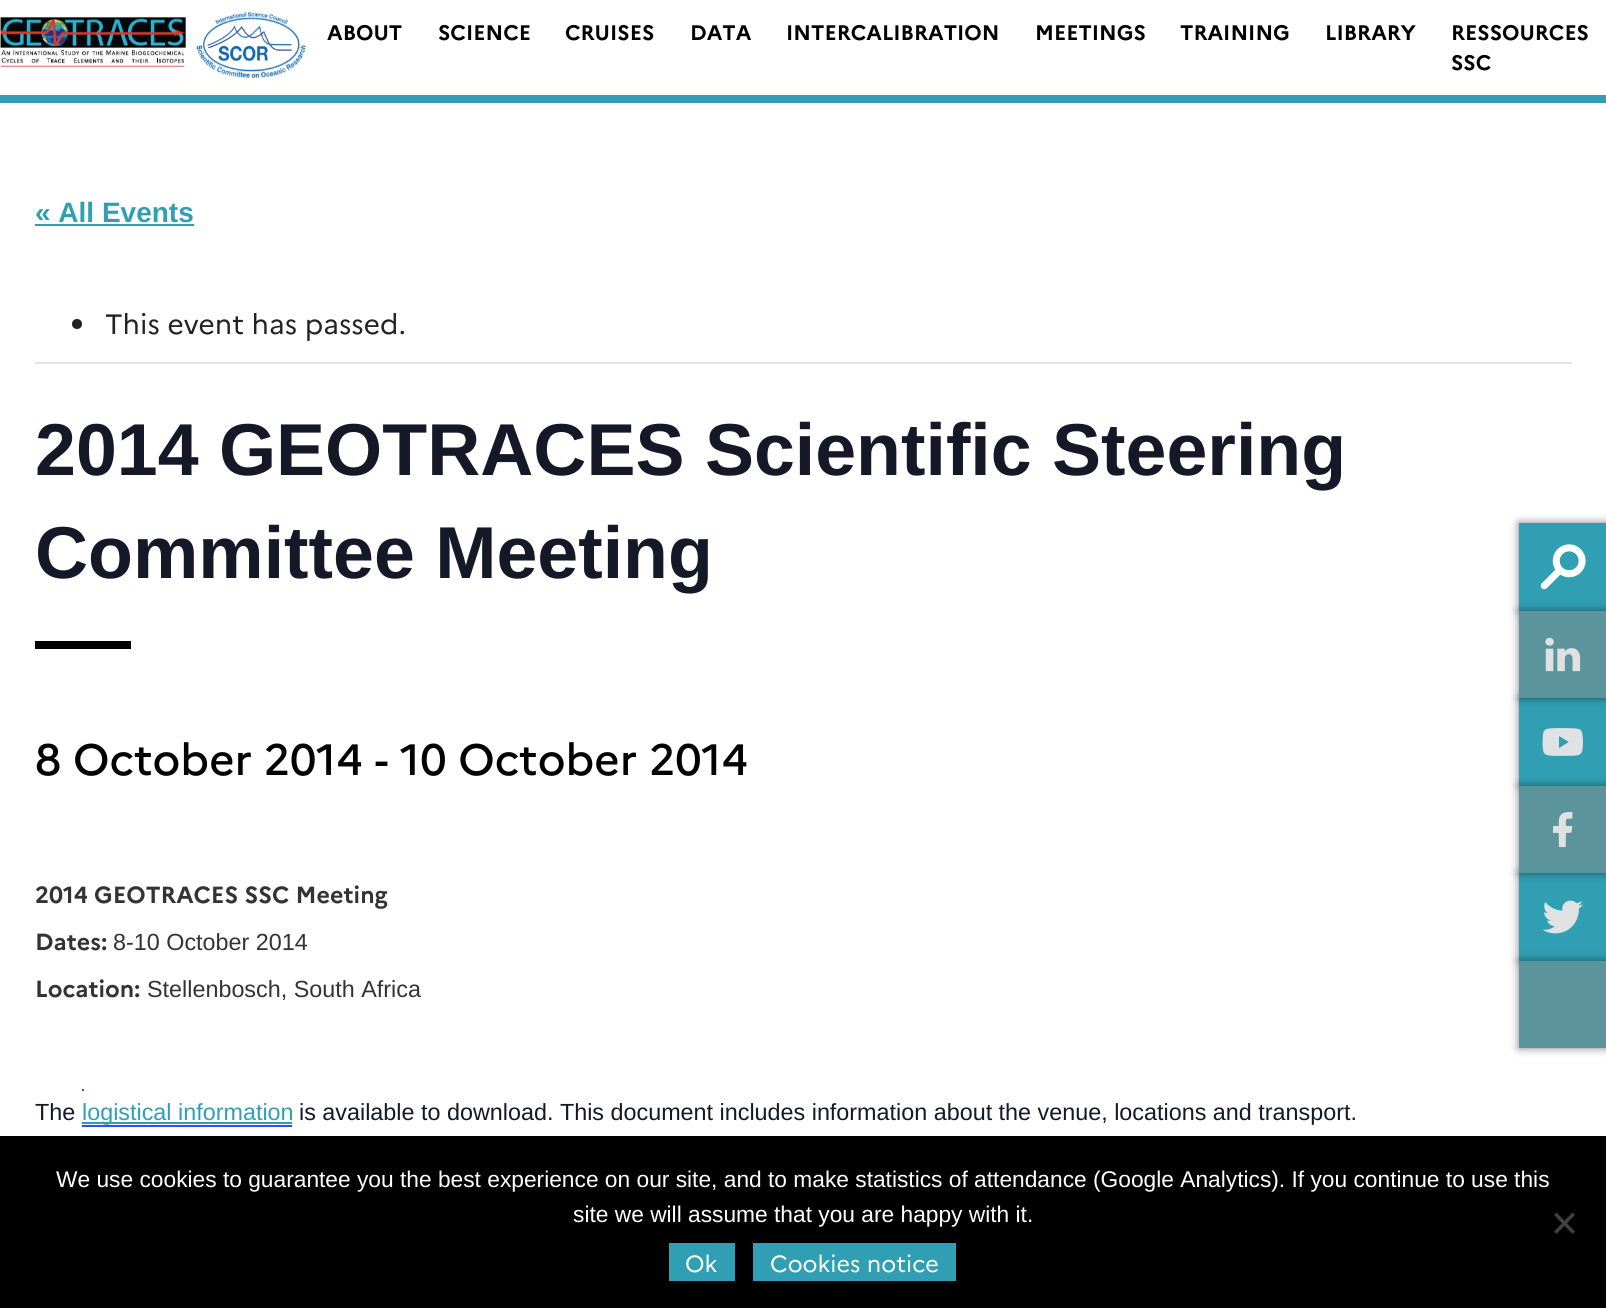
import math
import cairo

surface = cairo.ImageSurface(cairo.FORMAT_RGB24, 1606, 1308)
ctx = cairo.Context(surface)
options = cairo.FontOptions()
options.set_hint_metrics(cairo.HINT_METRICS_OFF)
options.set_hint_style(cairo.HINT_STYLE_NONE)
ctx.set_font_options(options)
ctx.set_miter_limit(4)


def set_color(code):
    ctx.set_source_rgb(*(v / 255 for v in bytes.fromhex(code[-6:])))


def draw_text(x, y, s, family, size, color, bold=False, italic=False):
    ctx.select_font_face(family, cairo.FONT_SLANT_ITALIC if italic else cairo.FONT_SLANT_NORMAL, cairo.FONT_WEIGHT_BOLD if bold else cairo.FONT_WEIGHT_NORMAL)
    ctx.set_font_size(size)
    set_color(color)
    ctx.move_to(x, y)
    ctx.show_text(s)


def fill_rect(x, y, w, h, color):
    set_color(color)
    ctx.rectangle(x, y, w, h)
    ctx.fill()


def rounded_rect(x, y, w, h, r):
    ctx.new_sub_path()
    for i, (u, v) in enumerate([(x + w - r, y + h - r), (x + r, y + h - r), (x + r, y + r), (x + w - r, y + r)]):
        ctx.arc(u, v, r, i * math.pi / 2, (i + 1) * math.pi / 2)
    ctx.close_path()


def draw_shadow(x, y, w, h, r, blur, alpha):
    ctx.push_group_with_content(cairo.CONTENT_ALPHA)
    ctx.set_operator(cairo.OPERATOR_SOURCE)
    for i in range(15, -16, -2):
        e = blur * i / 6
        if min(w, h) + 2 * e > 0:
            ctx.set_source_rgba(0, 0, 0, alpha * math.erfc((i - 1) / 8.5) / 2)
            rounded_rect(x - e, y - e, w + 2 * e, h + 2 * e, max(0, min(r + e + blur * .6, min(w, h) / 2 + e)))
            ctx.fill()
    ctx.mask(ctx.pop_group())


def draw_image(path, x, y, w, h):
    ctx.save()
    ctx.set_source_surface(cairo.ImageSurface.create_from_png(path), x, y)
    ctx.rectangle(x, y, w, h)
    ctx.fill()
    ctx.restore()


set_color("#ffffff")
ctx.paint()
fill_rect(0, 95, 1606, 8, "#309fb3")
draw_image("assets/img1.png", 0, 12, 306, 66)
draw_text(327, 40, "ABOUT", "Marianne", 21, "#000000", bold=True)
draw_text(438, 40, "SCIENCE", "Marianne", 21, "#000000", bold=True)
draw_text(565, 40, "CRUISES", "Marianne", 21, "#000000", bold=True)
draw_text(690, 40, "DATA", "Marianne", 21, "#000000", bold=True)
draw_text(786, 40, "INTERCALIBRATION", "Marianne", 21, "#000000", bold=True)
draw_text(1035, 40, "MEETINGS", "Marianne", 21, "#000000", bold=True)
draw_text(1180, 40, "TRAINING", "Marianne", 21, "#000000", bold=True)
draw_text(1325, 40, "LIBRARY", "Marianne", 21, "#000000", bold=True)
draw_text(1451, 40, "RESSOURCES", "Marianne", 21, "#000000", bold=True)
draw_text(1451, 70, "SSC", "Marianne", 21, "#000000", bold=True)
draw_text(35, 222, "« All Events", "Liberation Sans", 28, "#309fb3", bold=True)
fill_rect(35, 224, 159, 2, "#309fb3")
fill_rect(35, 362, 1537, 2, "#e4e4e4")
set_color("#222222")
ctx.new_path()
ctx.arc(77, 324, 5, 0, 2 * math.pi)
ctx.fill()
draw_text(105, 334, "This event has passed.", "Marianne", 28, "#222222")
draw_text(35, 475, "2014 GEOTRACES Scientific Steering", "Liberation Sans", 73.5, "#141827", bold=True)
draw_text(35, 578, "Committee Meeting", "Liberation Sans", 73.5, "#141827", bold=True)
fill_rect(35, 641, 96, 8, "#000000")
draw_text(35, 775, "8 October 2014 - 10 October 2014", "Marianne Medium", 43.75, "#000000")
draw_text(35, 903, "2014 GEOTRACES SSC Meeting", "Marianne", 23.35, "#333333", bold=True)
draw_text(35, 950, "Dates:", "Marianne", 23.35, "#333333", bold=True)
draw_text(113, 950, "8-10 October 2014", "Liberation Sans", 23.35, "#333333")
draw_text(35, 997, "Location:", "Marianne", 23.35, "#333333", bold=True)
draw_text(147, 997, "Stellenbosch, South Africa", "Liberation Sans", 23.35, "#333333")
draw_text(35, 1120, "The", "Liberation Sans", 23.35, "#141827")
fill_rect(82, 1122, 210, 2, "#309fb3")
draw_text(82, 1120, "logistical information", "Liberation Sans", 23.35, "#309fb3")
fill_rect(82, 1089, 2, 2, "#334aff")
fill_rect(82, 1125, 210, 2, "#334aff")
draw_text(299, 1120, "is available to download. This document includes information about the venue, locations and transport.", "Liberation Sans", 23.35, "#141827")
set_color("#000000")
draw_shadow(1519, 523, 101, 88, 0, 4.5, 0.5)
fill_rect(1519, 523, 87, 88, "#309fb3")
draw_image("assets/img2.png", 1540, 544, 46, 46)
set_color("#000000")
draw_shadow(1519, 698, 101, 88, 0, 4.5, 0.5)
fill_rect(1519, 698, 87, 88, "#309fb3")
set_color("#000000")
draw_shadow(1519, 611, 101, 87, 0, 4.5, 0.5)
fill_rect(1519, 611, 87, 87, "#5c949e")
draw_image("assets/img3.png", 1545, 637, 36, 35)
draw_image("assets/img4.png", 1542, 728, 41, 28)
set_color("#000000")
draw_shadow(1519, 873, 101, 88, 0, 4.5, 0.5)
fill_rect(1519, 873, 87, 88, "#309fb3")
set_color("#000000")
draw_shadow(1519, 786, 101, 87, 0, 4.5, 0.5)
fill_rect(1519, 786, 87, 87, "#5c949e")
draw_image("assets/img5.png", 1552, 812, 21, 36)
draw_image("assets/img6.png", 1542, 900, 41, 34)
set_color("#000000")
draw_shadow(1519, 961, 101, 87, 0, 4.5, 0.5)
fill_rect(1519, 961, 87, 87, "#5c949e")
fill_rect(0, 1136, 1606, 172, "#000000")
draw_text(56, 1187, "We use cookies to guarantee you the best experience on our site, and to make statistics of attendance (Google Analytics). If you continue to use this", "Liberation Sans", 22.75, "#ffffff")
draw_text(573, 1222, "site we will assume that you are happy with it.", "Liberation Sans", 22.75, "#ffffff")
set_color("#404040")
ctx.new_path()
ctx.move_to(1572.5, 1212.5)
ctx.line_to(1575, 1215)
ctx.line_to(1556.5, 1234)
ctx.line_to(1554, 1231.5)
ctx.close_path()
ctx.fill()
ctx.new_path()
ctx.move_to(1554, 1215)
ctx.line_to(1556.5, 1212.5)
ctx.line_to(1575, 1231.5)
ctx.line_to(1572.5, 1234)
ctx.close_path()
ctx.fill()
fill_rect(669, 1243, 66, 38, "#309fb3")
draw_text(685, 1272, "Ok", "Marianne", 23.35, "#ffffff")
fill_rect(753, 1243, 203, 38, "#309fb3")
draw_text(770, 1272, "Cookies notice", "Marianne", 23.35, "#ffffff")
surface.write_to_png("output.png")
